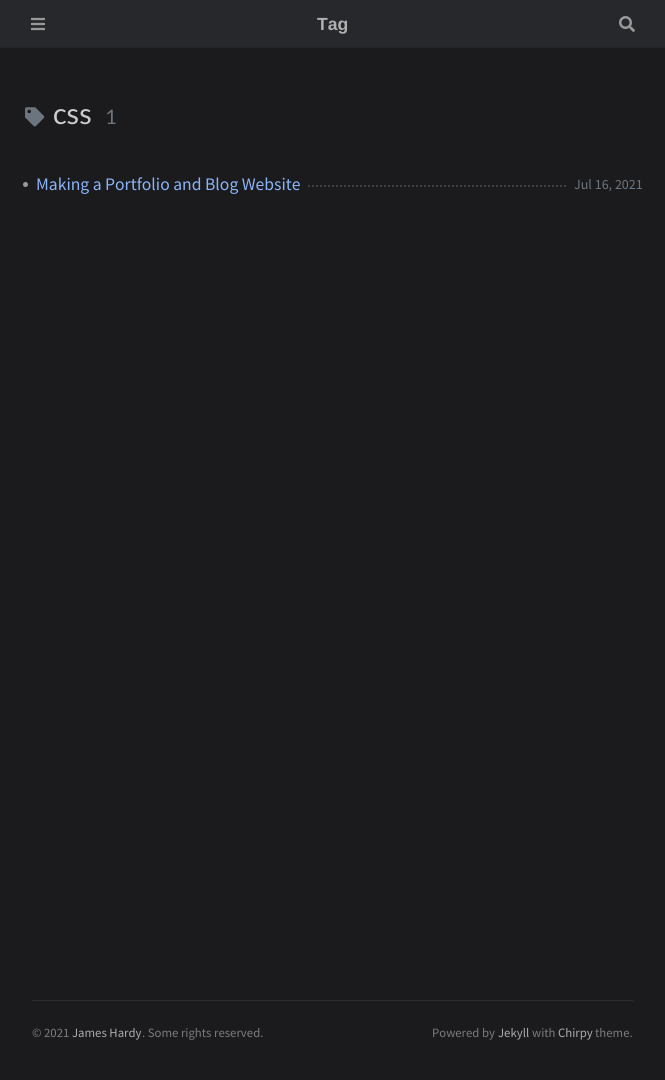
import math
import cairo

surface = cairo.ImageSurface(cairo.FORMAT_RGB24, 665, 1080)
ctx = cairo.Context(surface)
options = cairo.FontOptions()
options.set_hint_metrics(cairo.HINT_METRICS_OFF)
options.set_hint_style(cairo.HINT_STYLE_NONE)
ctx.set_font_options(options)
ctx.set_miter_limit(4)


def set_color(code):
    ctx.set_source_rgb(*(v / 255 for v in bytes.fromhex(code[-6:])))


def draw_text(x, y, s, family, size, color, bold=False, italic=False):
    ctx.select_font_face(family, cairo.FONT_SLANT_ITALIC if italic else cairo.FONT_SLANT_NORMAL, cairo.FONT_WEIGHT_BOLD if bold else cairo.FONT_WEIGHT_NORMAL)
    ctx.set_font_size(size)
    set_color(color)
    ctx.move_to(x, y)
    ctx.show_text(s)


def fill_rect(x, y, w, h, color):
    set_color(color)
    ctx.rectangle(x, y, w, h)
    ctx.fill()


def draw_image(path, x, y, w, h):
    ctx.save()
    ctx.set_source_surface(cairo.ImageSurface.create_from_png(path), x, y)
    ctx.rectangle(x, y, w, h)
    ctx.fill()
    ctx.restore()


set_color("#1b1b1e")
ctx.paint()
fill_rect(0, 0, 665, 47, "#27282b")
fill_rect(0, 47, 665, 1, "#242528")
draw_image("assets/img1.png", 31, 17, 14, 14)
draw_text(317, 30, "Tag", "Liberation Sans", 17.6, "#afb0b1", bold=True)
draw_image("assets/img2.png", 619, 16, 16, 16)
draw_image("assets/img3.png", 25, 107, 20, 20)
draw_text(53, 124, "css", "Lato", 29, "#cccccc")
draw_text(105, 124, "1", "Lato", 20, "#6c757d")
set_color("#999999")
ctx.new_path()
ctx.arc(25.5, 184.5, 2.5, 0, 2 * math.pi)
ctx.fill()
draw_text(36, 190, "Making a Portfolio and Blog Website", "Source Sans Pro", 17.6, "#8ab4f8")
ctx.new_path()
ctx.move_to(308, 186)
ctx.line_to(566, 186)
set_color("#3f4144")
ctx.set_dash([2, 2])
ctx.stroke()
draw_text(574, 189, "Jul 16, 2021", "Source Sans Pro", 14, "#6c757d")
fill_rect(32, 1000, 601, 1, "#2c2d2d")
draw_text(32, 1037, "© 2021", "Source Sans Pro", 12.75, "#7a7b7d")
draw_text(72, 1037, "James Hardy", "Source Sans Pro", 12.75, "#ababab")
draw_text(142, 1037, ". Some rights reserved.", "Source Sans Pro", 12.75, "#7a7b7d")
draw_text(432, 1037, "Powered by", "Source Sans Pro", 12.75, "#7a7b7d")
draw_text(498, 1037, "Jekyll", "Source Sans Pro", 12.75, "#ababab")
draw_text(532, 1037, "with", "Source Sans Pro", 12.75, "#7a7b7d")
draw_text(558, 1037, "Chirpy", "Source Sans Pro", 12.75, "#ababab")
draw_text(595, 1037, "theme.", "Source Sans Pro", 12.75, "#7a7b7d")
surface.write_to_png("output.png")
